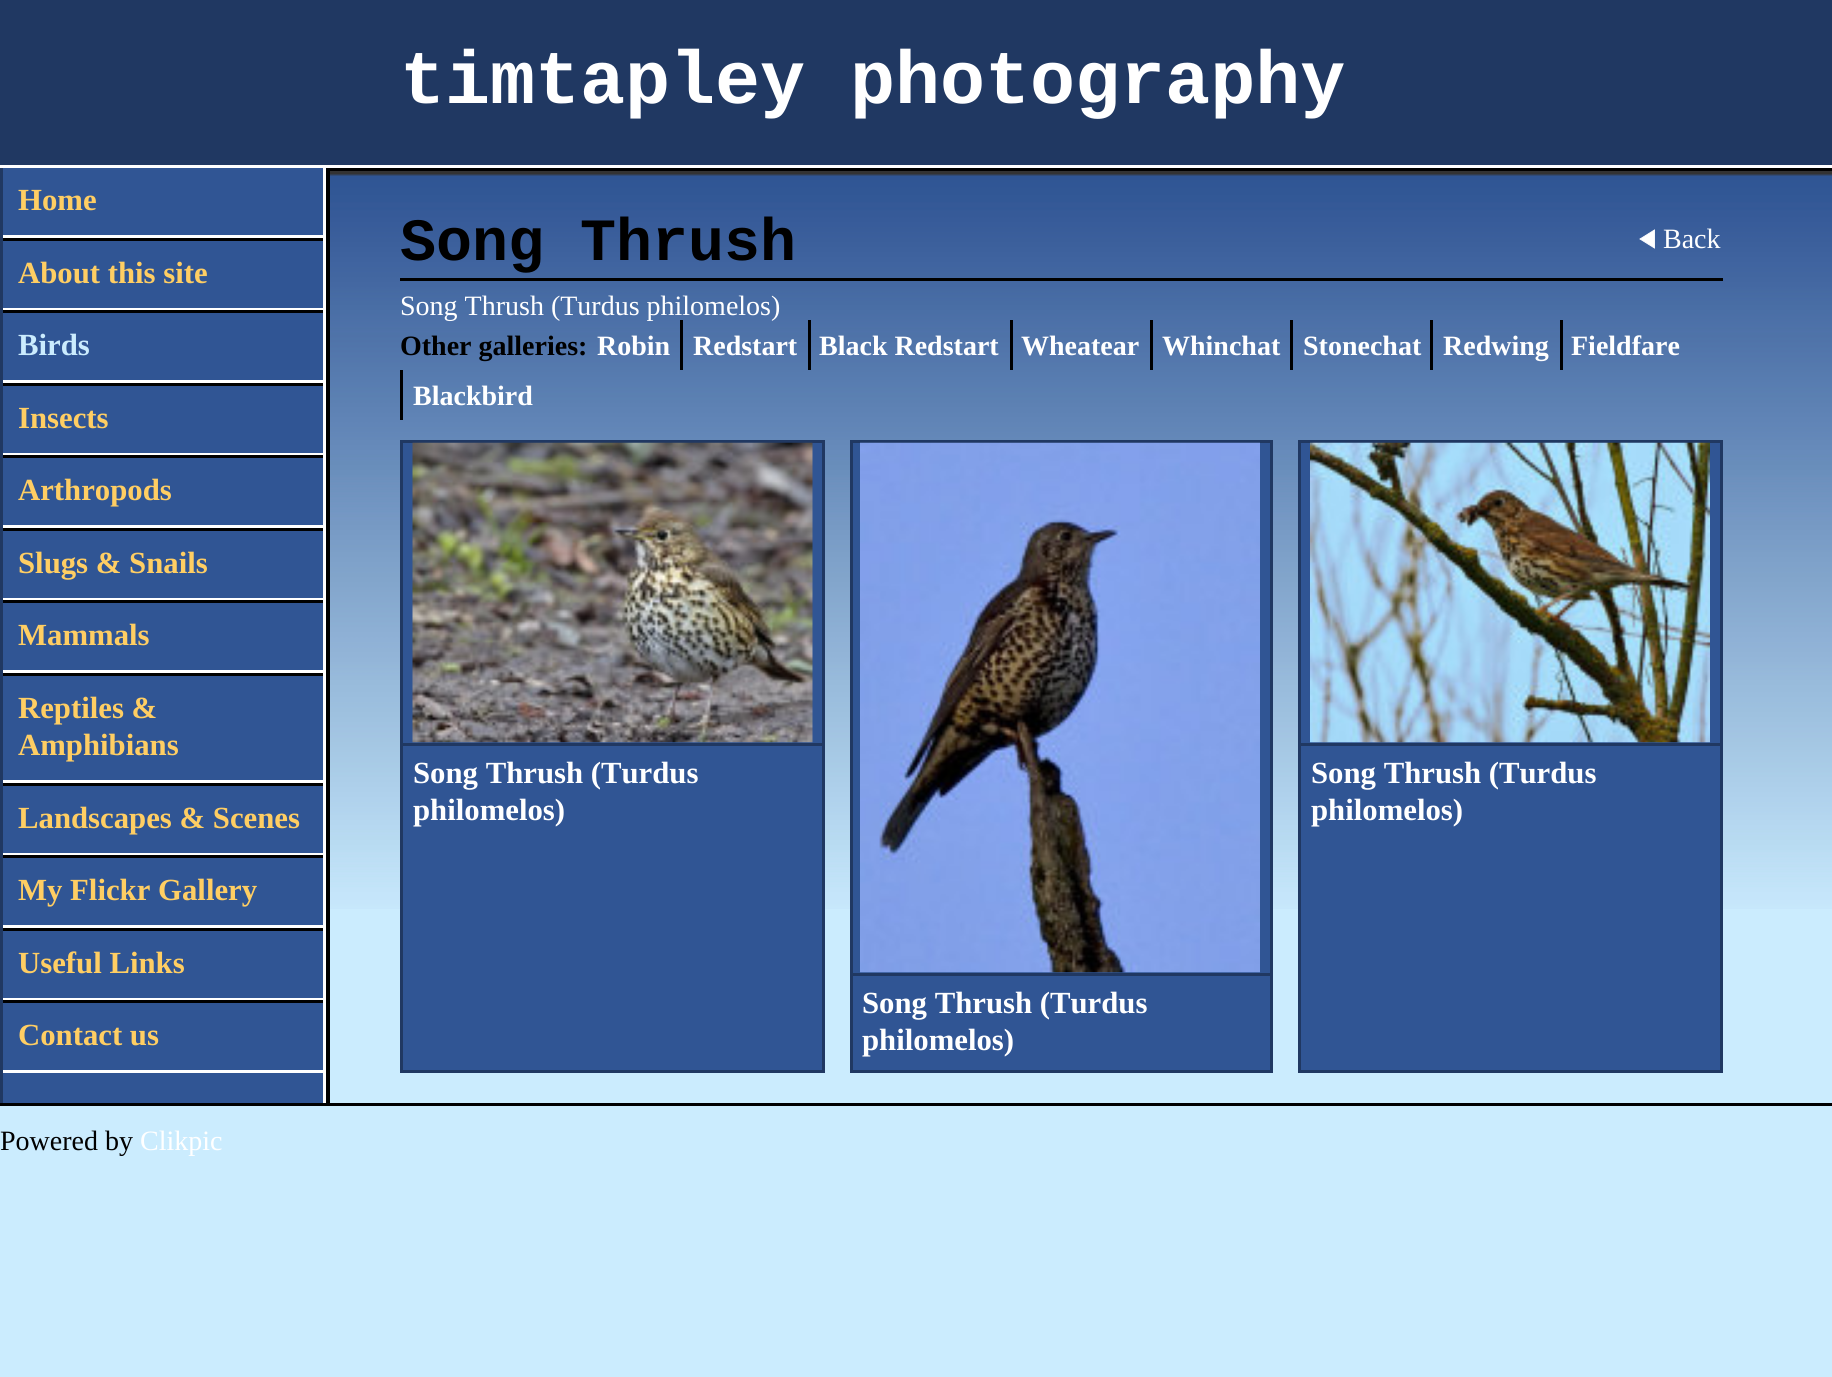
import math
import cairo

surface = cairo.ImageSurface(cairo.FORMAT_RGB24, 1832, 1377)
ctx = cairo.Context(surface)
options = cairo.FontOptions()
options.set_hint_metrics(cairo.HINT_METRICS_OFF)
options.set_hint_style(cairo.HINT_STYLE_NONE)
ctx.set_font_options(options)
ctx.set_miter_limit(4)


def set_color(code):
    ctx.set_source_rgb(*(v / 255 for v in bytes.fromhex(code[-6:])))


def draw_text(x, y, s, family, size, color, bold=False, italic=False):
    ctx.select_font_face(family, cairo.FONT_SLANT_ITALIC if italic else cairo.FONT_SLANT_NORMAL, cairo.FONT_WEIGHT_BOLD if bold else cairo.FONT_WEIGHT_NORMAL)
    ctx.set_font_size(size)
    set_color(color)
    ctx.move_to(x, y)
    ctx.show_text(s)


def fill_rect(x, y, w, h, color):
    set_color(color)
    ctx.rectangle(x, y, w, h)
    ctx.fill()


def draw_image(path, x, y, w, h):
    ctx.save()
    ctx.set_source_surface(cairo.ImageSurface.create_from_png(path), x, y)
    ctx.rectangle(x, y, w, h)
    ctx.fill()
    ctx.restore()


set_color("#cbecfe")
ctx.paint()
fill_rect(0, 0, 1832, 165, "#203862")
fill_rect(0, 165, 1832, 3, "#ffffff")
draw_text(400, 103, "timtapley photography", "Liberation Mono", 75, "#ffffff", bold=True)
draw_image("assets/img1.png", 330, 171, 1502, 738)
fill_rect(330, 168, 1502, 3, "#000000")
fill_rect(3, 168, 320, 935, "#305594")
fill_rect(326, 168, 4, 935, "#000000")
fill_rect(323, 168, 3, 935, "#ffffff")
fill_rect(0, 168, 3, 935, "#203862")
fill_rect(3, 235, 320, 3, "#ffffff")
draw_text(18, 210, "Home", "Liberation Serif", 30.75, "#ffce63", bold=True)
fill_rect(3, 238, 320, 3, "#000000")
fill_rect(3, 308, 320, 2, "#ffffff")
draw_text(18, 283, "About this site", "Liberation Serif", 30.75, "#ffce63", bold=True)
fill_rect(3, 310, 320, 3, "#000000")
fill_rect(3, 380, 320, 3, "#ffffff")
draw_text(18, 355, "Birds", "Liberation Serif", 30.75, "#cbecfe", bold=True)
fill_rect(3, 383, 320, 3, "#000000")
fill_rect(3, 453, 320, 2, "#ffffff")
draw_text(18, 428, "Insects", "Liberation Serif", 30.75, "#ffce63", bold=True)
fill_rect(3, 455, 320, 3, "#000000")
fill_rect(3, 525, 320, 3, "#ffffff")
draw_text(18, 500, "Arthropods", "Liberation Serif", 30.75, "#ffce63", bold=True)
fill_rect(3, 528, 320, 3, "#000000")
fill_rect(3, 598, 320, 2, "#ffffff")
draw_text(18, 573, "Slugs & Snails", "Liberation Serif", 30.75, "#ffce63", bold=True)
fill_rect(3, 600, 320, 3, "#000000")
fill_rect(3, 670, 320, 3, "#ffffff")
draw_text(18, 645, "Mammals", "Liberation Serif", 30.75, "#ffce63", bold=True)
fill_rect(3, 673, 320, 3, "#000000")
fill_rect(3, 780, 320, 3, "#ffffff")
draw_text(18, 718, "Reptiles &", "Liberation Serif", 30.75, "#ffce63", bold=True)
draw_text(18, 755, "Amphibians", "Liberation Serif", 30.75, "#ffce63", bold=True)
fill_rect(3, 783, 320, 3, "#000000")
fill_rect(3, 853, 320, 2, "#ffffff")
draw_text(18, 828, "Landscapes & Scenes", "Liberation Serif", 30.75, "#ffce63", bold=True)
fill_rect(3, 855, 320, 3, "#000000")
fill_rect(3, 925, 320, 3, "#ffffff")
draw_text(18, 900, "My Flickr Gallery", "Liberation Serif", 30.75, "#ffce63", bold=True)
fill_rect(3, 928, 320, 3, "#000000")
fill_rect(3, 998, 320, 2, "#ffffff")
draw_text(18, 973, "Useful Links", "Liberation Serif", 30.75, "#ffce63", bold=True)
fill_rect(3, 1000, 320, 3, "#000000")
fill_rect(3, 1070, 320, 3, "#ffffff")
draw_text(18, 1045, "Contact us", "Liberation Serif", 30.75, "#ffce63", bold=True)
fill_rect(400, 278, 1323, 3, "#000000")
draw_text(400, 260, "Song Thrush", "Liberation Mono", 60, "#000000", bold=True)
set_color("#ffffff")
ctx.new_path()
ctx.move_to(1654.5, 230)
ctx.line_to(1654.5, 248)
ctx.line_to(1640, 239)
ctx.close_path()
ctx.fill_preserve()
ctx.set_line_width(0.9)
ctx.stroke()
draw_text(1663, 248, "Back", "Liberation Serif", 28, "#ffffff")
draw_text(400, 315, "Song Thrush (Turdus philomelos)", "Liberation Serif", 28, "#ffffff")
draw_text(400, 355, "Other galleries:", "Liberation Serif", 28, "#000000", bold=True)
draw_text(597, 355, "Robin", "Liberation Serif", 28, "#ffffff", bold=True)
fill_rect(680, 320, 3, 50, "#000000")
draw_text(693, 355, "Redstart", "Liberation Serif", 28, "#ffffff", bold=True)
fill_rect(808, 320, 3, 50, "#000000")
draw_text(819, 355, "Black Redstart", "Liberation Serif", 28, "#ffffff", bold=True)
fill_rect(1010, 320, 3, 50, "#000000")
draw_text(1021, 355, "Wheatear", "Liberation Serif", 28, "#ffffff", bold=True)
fill_rect(1150, 320, 3, 50, "#000000")
draw_text(1162, 355, "Whinchat", "Liberation Serif", 28, "#ffffff", bold=True)
fill_rect(1290, 320, 3, 50, "#000000")
draw_text(1303, 355, "Stonechat", "Liberation Serif", 28, "#ffffff", bold=True)
fill_rect(1430, 320, 3, 50, "#000000")
draw_text(1443, 355, "Redwing", "Liberation Serif", 28, "#ffffff", bold=True)
fill_rect(1560, 320, 3, 50, "#000000")
draw_text(1571, 355, "Fieldfare", "Liberation Serif", 28, "#ffffff", bold=True)
fill_rect(400, 370, 3, 50, "#000000")
draw_text(413, 405, "Blackbird", "Liberation Serif", 28, "#ffffff", bold=True)
set_color("#305594")
ctx.rectangle(401.5, 441.5, 422, 630)
ctx.fill_preserve()
set_color("#203862")
ctx.set_line_width(3)
ctx.stroke()
draw_image("assets/img2.png", 412, 442, 401, 301)
fill_rect(403, 743, 420, 3, "#203862")
draw_text(413, 783, "Song Thrush (Turdus", "Liberation Serif", 30.75, "#ffffff", bold=True)
draw_text(413, 820, "philomelos)", "Liberation Serif", 30.75, "#ffffff", bold=True)
set_color("#305594")
ctx.rectangle(1299.5, 441.5, 422, 630)
ctx.fill_preserve()
set_color("#203862")
ctx.stroke()
draw_image("assets/img3.png", 1310, 442, 400, 301)
fill_rect(1300, 743, 420, 3, "#203862")
draw_text(1311, 783, "Song Thrush (Turdus", "Liberation Serif", 30.75, "#ffffff", bold=True)
draw_text(1311, 820, "philomelos)", "Liberation Serif", 30.75, "#ffffff", bold=True)
set_color("#305594")
ctx.rectangle(851.5, 441.5, 420, 630)
ctx.fill_preserve()
set_color("#203862")
ctx.stroke()
draw_image("assets/img4.png", 860, 442, 400, 531)
fill_rect(853, 973, 417, 3, "#203862")
draw_text(862, 1013, "Song Thrush (Turdus", "Liberation Serif", 30.75, "#ffffff", bold=True)
draw_text(862, 1050, "philomelos)", "Liberation Serif", 30.75, "#ffffff", bold=True)
fill_rect(0, 1103, 1832, 3, "#000000")
draw_text(0, 1150, "Powered by", "Liberation Serif", 28, "#000000")
draw_text(140, 1150, "Clikpic", "Liberation Serif", 28, "#ffffff")
surface.write_to_png("output.png")
